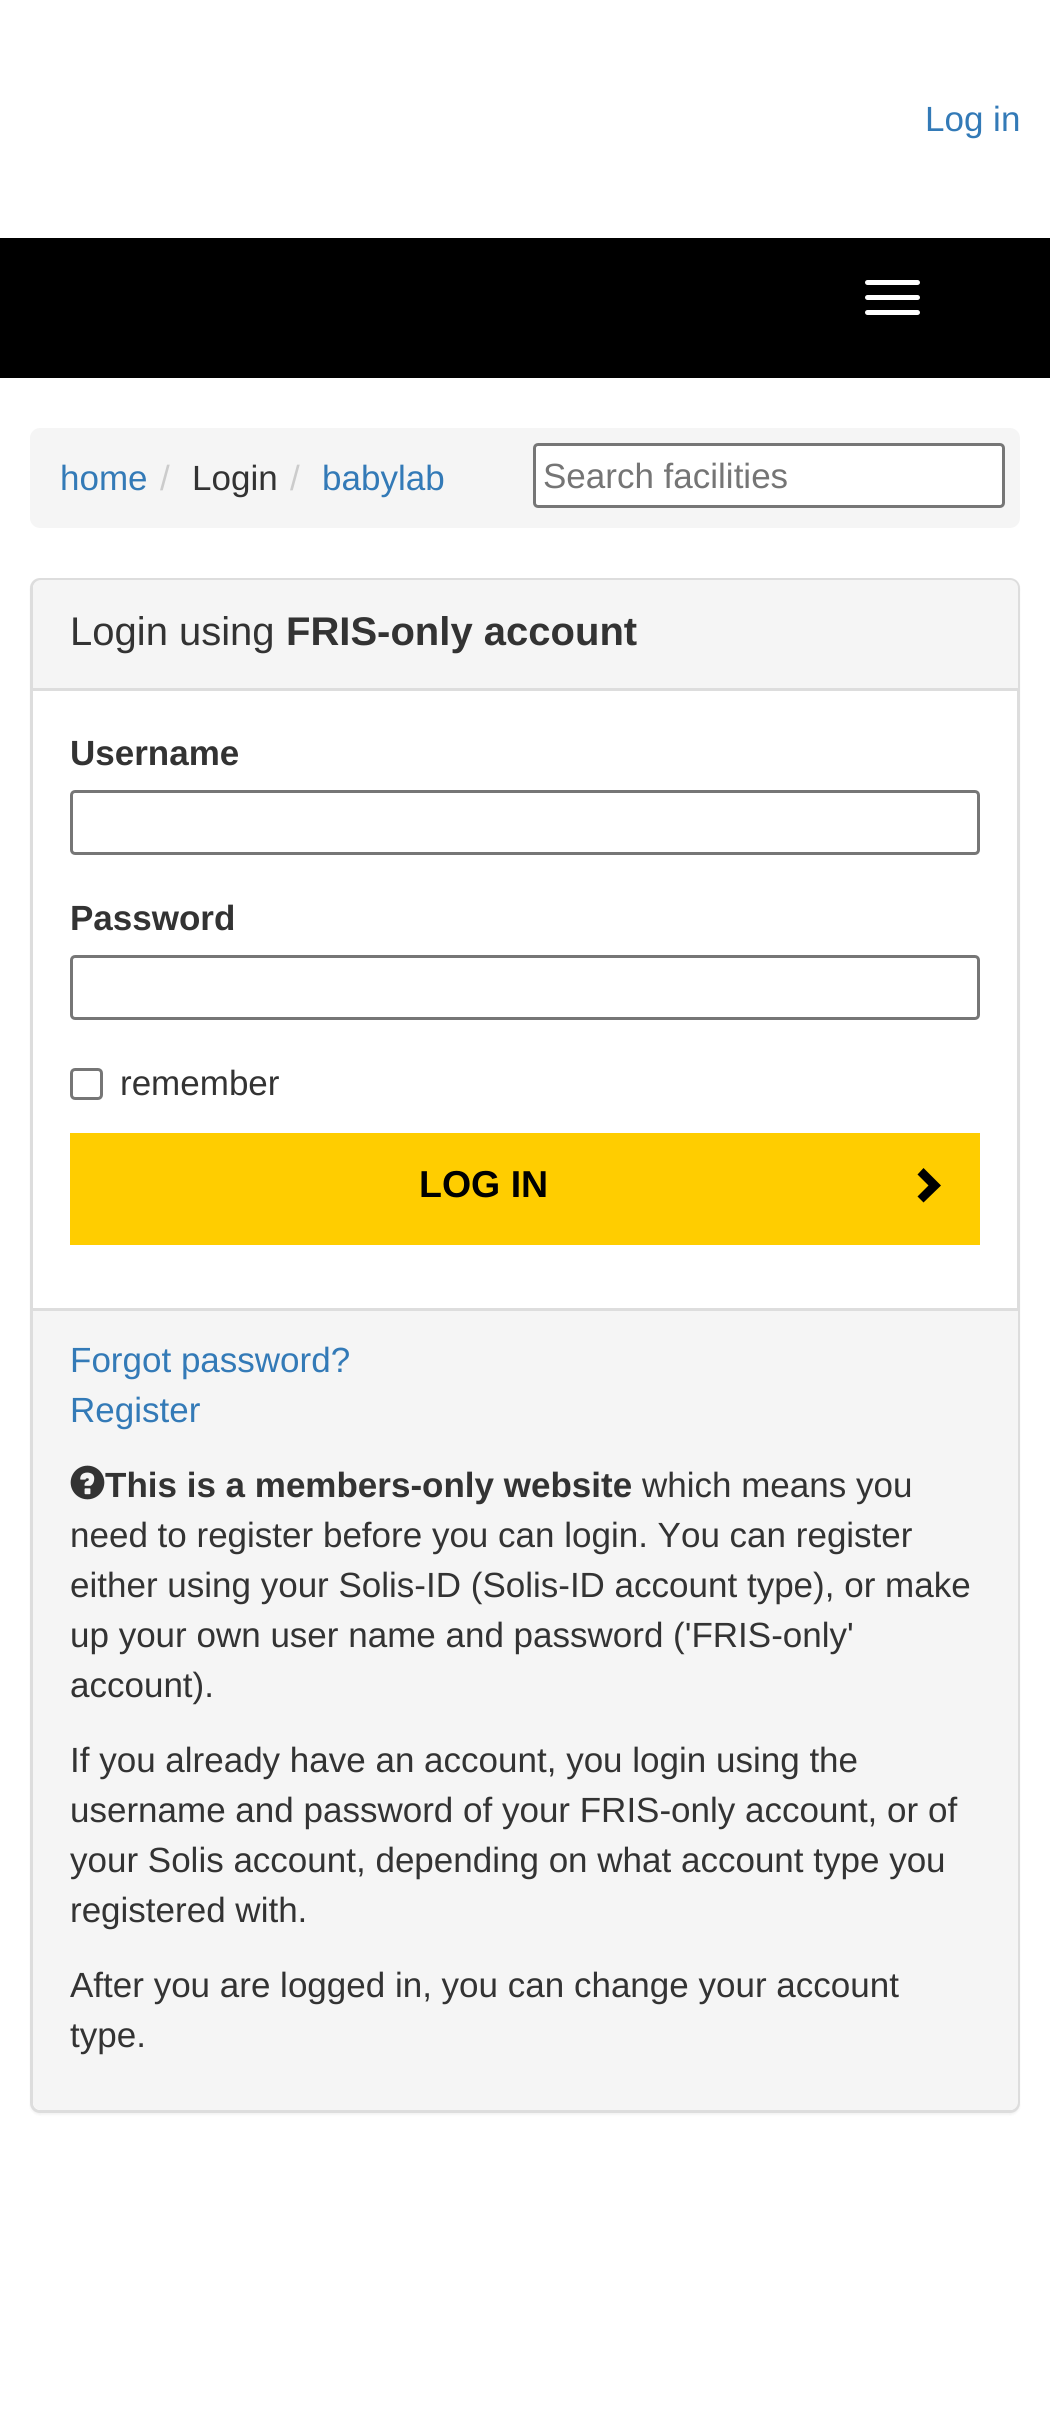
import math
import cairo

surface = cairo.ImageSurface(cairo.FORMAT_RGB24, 1050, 2431)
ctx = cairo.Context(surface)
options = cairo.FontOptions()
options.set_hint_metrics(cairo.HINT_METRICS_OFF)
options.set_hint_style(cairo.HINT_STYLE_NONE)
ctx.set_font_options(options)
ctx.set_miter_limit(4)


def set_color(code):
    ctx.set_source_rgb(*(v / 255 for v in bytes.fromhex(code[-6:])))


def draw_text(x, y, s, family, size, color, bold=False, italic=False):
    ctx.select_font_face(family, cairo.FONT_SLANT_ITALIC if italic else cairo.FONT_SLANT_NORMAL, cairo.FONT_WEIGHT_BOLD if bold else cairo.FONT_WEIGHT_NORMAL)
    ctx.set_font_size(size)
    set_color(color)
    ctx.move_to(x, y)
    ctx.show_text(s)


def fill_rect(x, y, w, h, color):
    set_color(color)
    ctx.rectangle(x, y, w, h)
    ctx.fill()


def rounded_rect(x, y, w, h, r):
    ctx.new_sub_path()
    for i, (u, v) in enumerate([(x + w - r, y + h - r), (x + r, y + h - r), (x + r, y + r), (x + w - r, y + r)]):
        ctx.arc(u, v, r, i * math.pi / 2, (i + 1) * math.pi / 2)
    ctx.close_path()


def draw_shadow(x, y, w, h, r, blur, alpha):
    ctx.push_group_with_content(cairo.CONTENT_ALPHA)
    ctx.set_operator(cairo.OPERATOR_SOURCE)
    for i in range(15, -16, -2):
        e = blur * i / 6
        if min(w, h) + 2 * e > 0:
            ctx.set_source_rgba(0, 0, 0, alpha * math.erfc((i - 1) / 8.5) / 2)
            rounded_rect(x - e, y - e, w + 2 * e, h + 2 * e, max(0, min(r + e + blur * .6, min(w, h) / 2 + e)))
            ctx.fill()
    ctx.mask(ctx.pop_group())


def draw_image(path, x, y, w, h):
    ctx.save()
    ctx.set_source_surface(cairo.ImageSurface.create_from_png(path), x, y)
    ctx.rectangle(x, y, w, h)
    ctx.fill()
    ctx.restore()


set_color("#ffffff")
ctx.paint()
draw_text(925, 131, "Log in", "Liberation Sans", 35, "#337ab7")
fill_rect(0, 238, 1050, 140, "#000000")
set_color("#ffffff")
rounded_rect(865, 280, 55, 5, 2.5)
ctx.fill()
rounded_rect(865, 295, 55, 5, 2.5)
ctx.fill()
rounded_rect(865, 310, 55, 5, 2.5)
ctx.fill()
set_color("#f5f5f5")
rounded_rect(30, 428, 990, 100, 10)
ctx.fill()
draw_text(60, 490, "home", "Liberation Sans", 35, "#337ab7")
draw_text(160, 490, "/", "Liberation Sans", 35, "#cccccc")
draw_text(192, 490, "Login", "Liberation Sans", 35, "#333333")
draw_text(290, 490, "/", "Liberation Sans", 35, "#cccccc")
draw_text(322, 490, "babylab", "Liberation Sans", 35, "#337ab7")
set_color("#ffffff")
rounded_rect(534.5, 444.5, 469, 62, 3.5)
ctx.fill_preserve()
set_color("#767676")
ctx.set_line_width(3)
ctx.stroke()
draw_text(543, 488, "Search facilities", "Liberation Sans", 35, "#757575")
set_color("#000000")
draw_shadow(30, 580, 990, 1535, 10, 1, 0.05)
set_color("#ffffff")
rounded_rect(31.5, 579.5, 987, 1532, 8.5)
ctx.fill_preserve()
set_color("#dddddd")
ctx.stroke()
set_color("#f5f5f5")
ctx.new_path()
ctx.move_to(41, 580)
ctx.line_to(1010, 580)
ctx.curve_to(1014.5, 580, 1018, 583.5, 1018, 588)
ctx.line_to(1018, 690)
ctx.line_to(33, 690)
ctx.line_to(33, 588)
ctx.curve_to(33, 583.5, 36.5, 580, 41, 580)
ctx.close_path()
ctx.fill()
fill_rect(33, 688, 985, 3, "#dddddd")
draw_text(70, 645, "Login using", "Liberation Sans", 40, "#333333")
draw_text(286, 645, "FRIS-only account", "Liberation Sans", 40, "#333333", bold=True)
draw_text(70, 765, "Username", "Liberation Sans", 35, "#333333", bold=True)
rounded_rect(71.5, 791.5, 907, 62, 3.5)
set_color("#767676")
ctx.stroke()
draw_text(70, 930, "Password", "Liberation Sans", 35, "#333333", bold=True)
rounded_rect(71.5, 956.5, 907, 62, 3.5)
set_color("#767676")
ctx.stroke()
rounded_rect(71.5, 1069.5, 30, 29, 3.5)
ctx.stroke()
draw_text(120, 1095, "remember", "Liberation Sans", 35, "#333333")
fill_rect(70, 1133, 910, 112, "#ffcd00")
draw_text(419, 1197, "LOG IN", "Liberation Sans", 37.5, "#000000", bold=True)
ctx.new_path()
ctx.move_to(941, 1185.5)
ctx.line_to(923.5, 1202.5)
ctx.line_to(917.5, 1196.5)
ctx.line_to(928.5, 1185.5)
ctx.line_to(917.5, 1174.5)
ctx.line_to(923.5, 1168)
ctx.close_path()
ctx.fill()
set_color("#f5f5f5")
ctx.new_path()
ctx.move_to(33, 1308)
ctx.line_to(1018, 1308)
ctx.line_to(1018, 2102)
ctx.curve_to(1018, 2106.5, 1014.5, 2110, 1010, 2110)
ctx.line_to(41, 2110)
ctx.curve_to(36.5, 2110, 33, 2106.5, 33, 2102)
ctx.close_path()
ctx.fill()
fill_rect(33, 1308, 985, 3, "#dddddd")
draw_text(70, 1372, "Forgot password?", "Liberation Sans", 35, "#337ab7")
draw_text(70, 1422, "Register", "Liberation Sans", 35, "#337ab7")
draw_image("assets/img1.png", 70, 1465, 35, 35)
draw_text(105, 1497, "This is a members-only website", "Liberation Sans", 35, "#333333", bold=True)
draw_text(642, 1497, "which means you", "Liberation Sans", 35, "#333333")
draw_text(70, 1547, "need to register before you can login. You can register", "Liberation Sans", 35, "#333333")
draw_text(70, 1597, "either using your Solis-ID (Solis-ID account type), or make", "Liberation Sans", 35, "#333333")
draw_text(70, 1647, "up your own user name and password ('FRIS-only'", "Liberation Sans", 35, "#333333")
draw_text(70, 1697, "account).", "Liberation Sans", 35, "#333333")
draw_text(70, 1772, "If you already have an account, you login using the", "Liberation Sans", 35, "#333333")
draw_text(70, 1822, "username and password of your FRIS-only account, or of", "Liberation Sans", 35, "#333333")
draw_text(70, 1872, "your Solis account, depending on what account type you", "Liberation Sans", 35, "#333333")
draw_text(70, 1922, "registered with.", "Liberation Sans", 35, "#333333")
draw_text(70, 1997, "After you are logged in, you can change your account", "Liberation Sans", 35, "#333333")
draw_text(70, 2047, "type.", "Liberation Sans", 35, "#333333")
surface.write_to_png("output.png")
